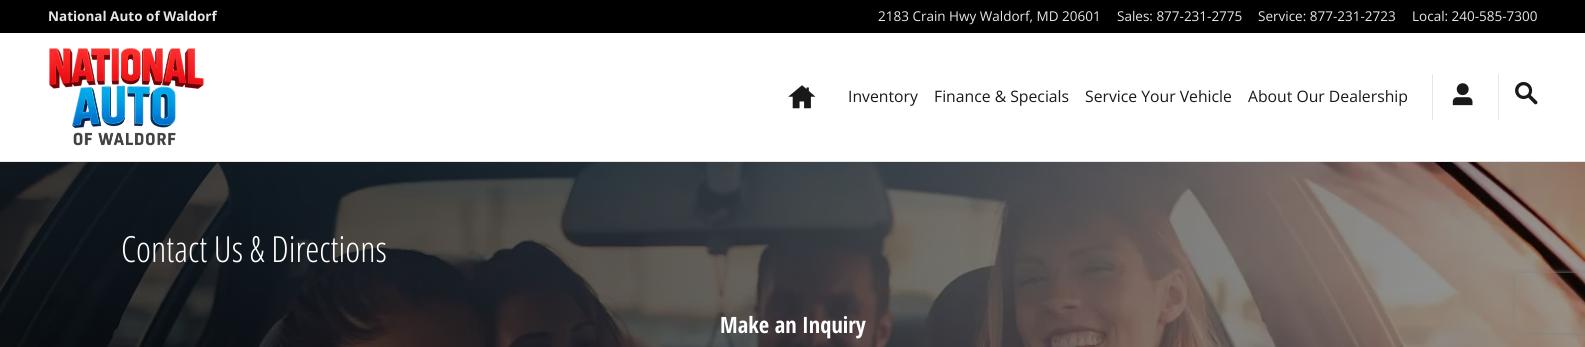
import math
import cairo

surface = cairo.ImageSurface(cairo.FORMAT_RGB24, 1585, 347)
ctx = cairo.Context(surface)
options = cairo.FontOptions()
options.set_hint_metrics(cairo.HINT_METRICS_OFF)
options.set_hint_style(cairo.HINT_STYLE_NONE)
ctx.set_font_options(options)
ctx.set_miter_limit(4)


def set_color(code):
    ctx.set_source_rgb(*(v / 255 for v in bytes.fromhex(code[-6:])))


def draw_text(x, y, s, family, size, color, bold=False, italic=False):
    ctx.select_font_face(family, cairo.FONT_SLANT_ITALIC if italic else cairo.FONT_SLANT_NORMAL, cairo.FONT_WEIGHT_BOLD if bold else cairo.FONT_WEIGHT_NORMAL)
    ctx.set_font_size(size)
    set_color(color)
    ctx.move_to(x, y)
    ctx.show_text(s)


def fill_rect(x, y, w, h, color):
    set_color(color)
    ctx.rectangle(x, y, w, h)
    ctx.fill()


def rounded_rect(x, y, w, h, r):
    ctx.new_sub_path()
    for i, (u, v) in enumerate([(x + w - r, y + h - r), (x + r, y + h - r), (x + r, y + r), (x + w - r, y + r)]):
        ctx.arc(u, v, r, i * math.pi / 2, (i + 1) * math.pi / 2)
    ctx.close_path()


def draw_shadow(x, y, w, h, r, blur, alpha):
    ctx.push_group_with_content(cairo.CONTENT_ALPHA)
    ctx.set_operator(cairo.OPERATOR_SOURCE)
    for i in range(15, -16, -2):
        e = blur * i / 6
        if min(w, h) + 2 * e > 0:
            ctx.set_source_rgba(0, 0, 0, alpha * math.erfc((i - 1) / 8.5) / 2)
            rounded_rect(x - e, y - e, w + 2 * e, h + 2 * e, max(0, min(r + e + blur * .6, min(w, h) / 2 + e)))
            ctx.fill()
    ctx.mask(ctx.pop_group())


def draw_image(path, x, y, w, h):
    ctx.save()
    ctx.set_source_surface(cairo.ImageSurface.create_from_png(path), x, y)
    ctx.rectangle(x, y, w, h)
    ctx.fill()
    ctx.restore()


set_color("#ffffff")
ctx.paint()
fill_rect(0, 161, 1585, 1, "#e6e6e6")
fill_rect(0, 0, 1585, 33, "#000000")
draw_text(48, 21, "National Auto of Waldorf", "Open Sans", 13.5, "#e6e6e6", bold=True)
draw_text(878, 21, "2183 Crain Hwy Waldorf, MD 20601", "Open Sans", 13.5, "#e6e6e6")
draw_text(1117, 21, "Sales: 877-231-2775", "Open Sans", 13.5, "#e6e6e6")
draw_text(1258, 21, "Service: 877-231-2723", "Open Sans", 13.5, "#e6e6e6")
draw_text(1412, 21, "Local: 240-585-7300", "Open Sans", 13.5, "#e6e6e6")
draw_image("assets/img1.png", 49, 48, 155, 98)
draw_image("assets/img2.png", 788, 85, 28, 24)
draw_text(848, 102, "Inventory", "Open Sans", 15.75, "#1a1a1a")
draw_text(934, 102, "Finance & Specials", "Open Sans", 15.75, "#1a1a1a")
draw_text(1085, 102, "Service Your Vehicle", "Open Sans", 15.75, "#1a1a1a")
draw_text(1248, 102, "About Our Dealership", "Open Sans", 15.75, "#1a1a1a")
fill_rect(1432, 74, 1, 46, "#e6e6e6")
draw_image("assets/img3.png", 1452, 83, 21, 23)
fill_rect(1498, 74, 1, 46, "#e6e6e6")
draw_image("assets/img4.png", 1515, 81, 23, 24)
draw_image("assets/img5.png", 0, 162, 1585, 185)
draw_text(121, 262, "Contact Us & Directions", "Open Sans Light", 36, "#ffffff")
draw_text(720, 333, "Make an Inquiry", "Open Sans Condensed", 22.5, "#ffffff", bold=True)
ctx.save()
ctx.set_fill_rule(cairo.FILL_RULE_EVEN_ODD)
ctx.new_path()
ctx.move_to(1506, 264)
ctx.line_to(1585, 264)
ctx.line_to(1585, 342)
ctx.line_to(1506, 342)
ctx.close_path()
ctx.move_to(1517, 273)
ctx.line_to(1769, 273)
ctx.curve_to(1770, 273, 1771, 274, 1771, 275)
ctx.line_to(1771, 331)
ctx.curve_to(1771, 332, 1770, 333, 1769, 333)
ctx.line_to(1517, 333)
ctx.curve_to(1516, 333, 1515, 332, 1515, 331)
ctx.line_to(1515, 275)
ctx.curve_to(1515, 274, 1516, 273, 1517, 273)
ctx.close_path()
ctx.clip()
set_color("#808080")
draw_shadow(1515, 273, 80, 60, 2, 2.5, 1)
ctx.restore()
surface.write_to_png("output.png")
